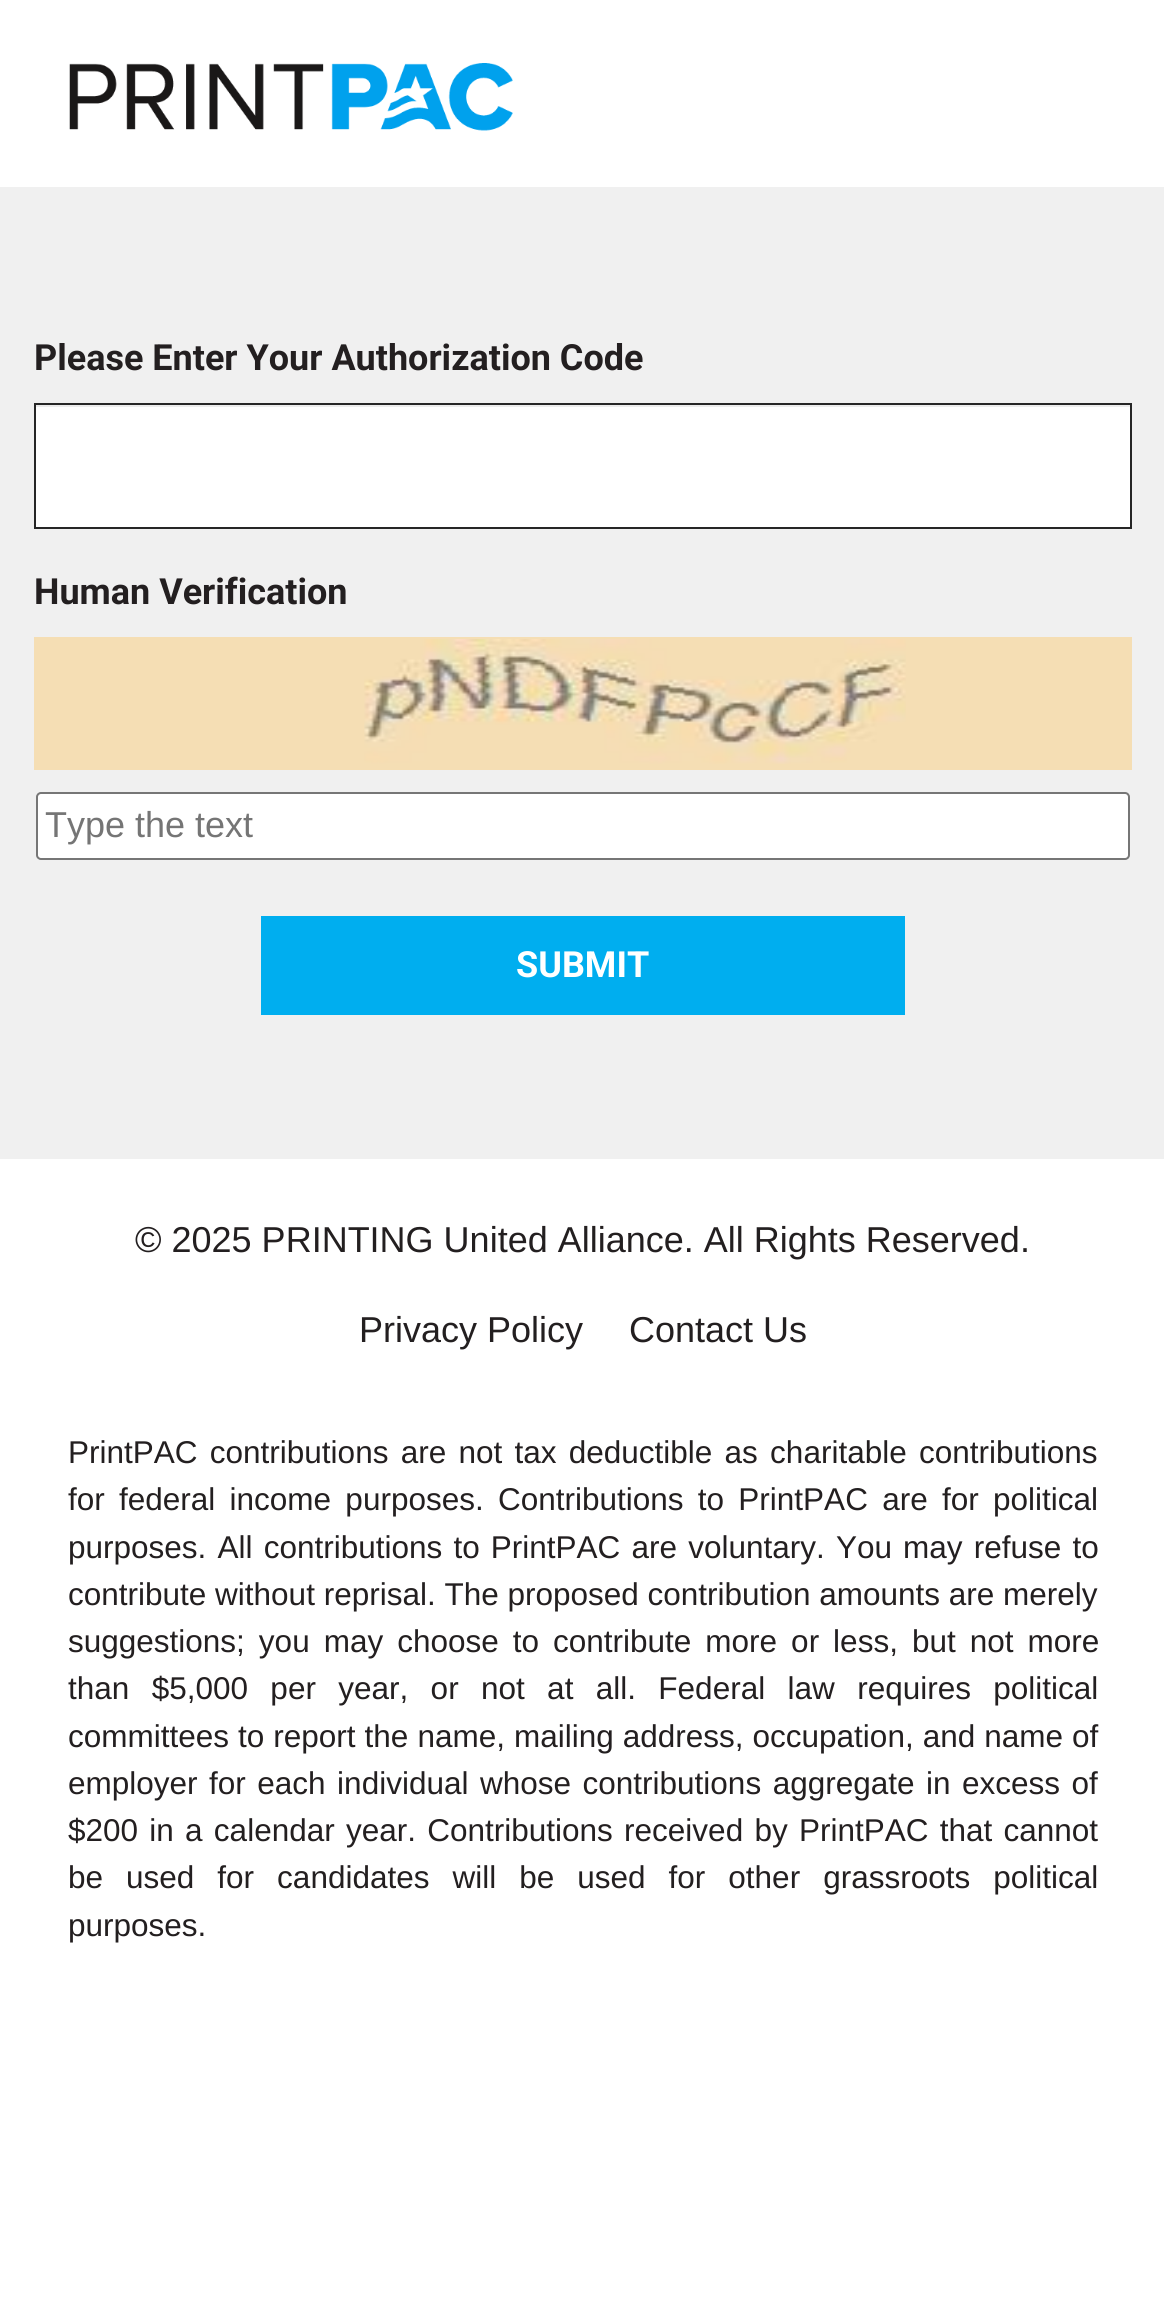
import math
import cairo

surface = cairo.ImageSurface(cairo.FORMAT_RGB24, 1164, 2306)
ctx = cairo.Context(surface)
options = cairo.FontOptions()
options.set_hint_metrics(cairo.HINT_METRICS_OFF)
options.set_hint_style(cairo.HINT_STYLE_NONE)
ctx.set_font_options(options)
ctx.set_miter_limit(4)


def set_color(code):
    ctx.set_source_rgb(*(v / 255 for v in bytes.fromhex(code[-6:])))


def draw_text(x, y, s, family, size, color, bold=False, italic=False):
    ctx.select_font_face(family, cairo.FONT_SLANT_ITALIC if italic else cairo.FONT_SLANT_NORMAL, cairo.FONT_WEIGHT_BOLD if bold else cairo.FONT_WEIGHT_NORMAL)
    ctx.set_font_size(size)
    set_color(color)
    ctx.move_to(x, y)
    ctx.show_text(s)


def draw_spaced(x, y, s, letter, word):
    ctx.move_to(x, y)
    for ch in s:
        ctx.show_text(ch)
        ctx.rel_move_to(letter + word * (ch == ' '), 0)


def fill_rect(x, y, w, h, color):
    set_color(color)
    ctx.rectangle(x, y, w, h)
    ctx.fill()


def rounded_rect(x, y, w, h, r):
    ctx.new_sub_path()
    for i, (u, v) in enumerate([(x + w - r, y + h - r), (x + r, y + h - r), (x + r, y + r), (x + w - r, y + r)]):
        ctx.arc(u, v, r, i * math.pi / 2, (i + 1) * math.pi / 2)
    ctx.close_path()


def draw_image(path, x, y, w, h):
    ctx.save()
    ctx.set_source_surface(cairo.ImageSurface.create_from_png(path), x, y)
    ctx.rectangle(x, y, w, h)
    ctx.fill()
    ctx.restore()


set_color("#ffffff")
ctx.paint()
draw_image("assets/img1.png", 69, 63, 444, 68)
fill_rect(0, 187, 1164, 972, "#f0f0f0")
draw_text(34, 370, "Please Enter Your Authorization Code", "Roboto", 36, "#231f20", bold=True)
fill_rect(36, 407, 1094, 120, "#ffffff")
fill_rect(36, 405, 1094, 2, "#ececec")
ctx.rectangle(35, 404, 1096, 124)
set_color("#262626")
ctx.stroke()
draw_text(34, 604, "Human Verification", "Roboto", 36, "#231f20", bold=True)
fill_rect(34, 637, 1098, 133, "#f5deb4")
draw_image("assets/img2.png", 364, 639, 542, 125)
set_color("#ffffff")
rounded_rect(37, 793, 1092, 66, 4)
ctx.fill_preserve()
set_color("#767676")
ctx.stroke()
draw_text(45, 837, "Type the text", "Liberation Sans", 36, "#757575")
fill_rect(261, 916, 644, 99, "#00aeef")
draw_text(516, 977, "SUBMIT", "Roboto", 36, "#ffffff", bold=True)
draw_text(135, 1252, "© 2025 PRINTING United Alliance. All Rights Reserved.", "Liberation Sans", 36, "#231f20")
draw_text(359, 1342, "Privacy Policy", "Liberation Sans", 36, "#231f20")
draw_text(629, 1342, "Contact Us", "Liberation Sans", 36, "#231f20")
ctx.set_font_size(31.5)
draw_spaced(68, 1463, "PrintPAC contributions are not tax deductible as charitable contributions", 0, 3.5)
draw_spaced(68, 1510, "for federal income purposes. Contributions to PrintPAC are for political", 0, 5.5)
draw_spaced(68, 1558, "purposes. All contributions to PrintPAC are voluntary. You may refuse to", 0, 2.4)
draw_text(68, 1605, "contribute without reprisal. The proposed contribution amounts are merely", "Liberation Sans", 31.5, "#231f20")
draw_spaced(68, 1652, "suggestions; you may choose to contribute more or less, but not more", 0, 5.25)
draw_spaced(68, 1699, "than $5,000 per year, or not at all. Federal law requires political", 0, 13.6)
draw_spaced(68, 1747, "committees to report the name, mailing address, occupation, and name of", 0, 0.25)
draw_spaced(68, 1794, "employer for each individual whose contributions aggregate in excess of", 0, 2.75)
draw_spaced(68, 1841, "$200 in a calendar year. Contributions received by PrintPAC that cannot", 0, 2.5)
draw_spaced(68, 1888, "be used for candidates will be used for other grassroots political", 0, 14.25)
draw_text(68, 1936, "purposes.", "Liberation Sans", 31.5, "#231f20")
surface.write_to_png("output.png")
